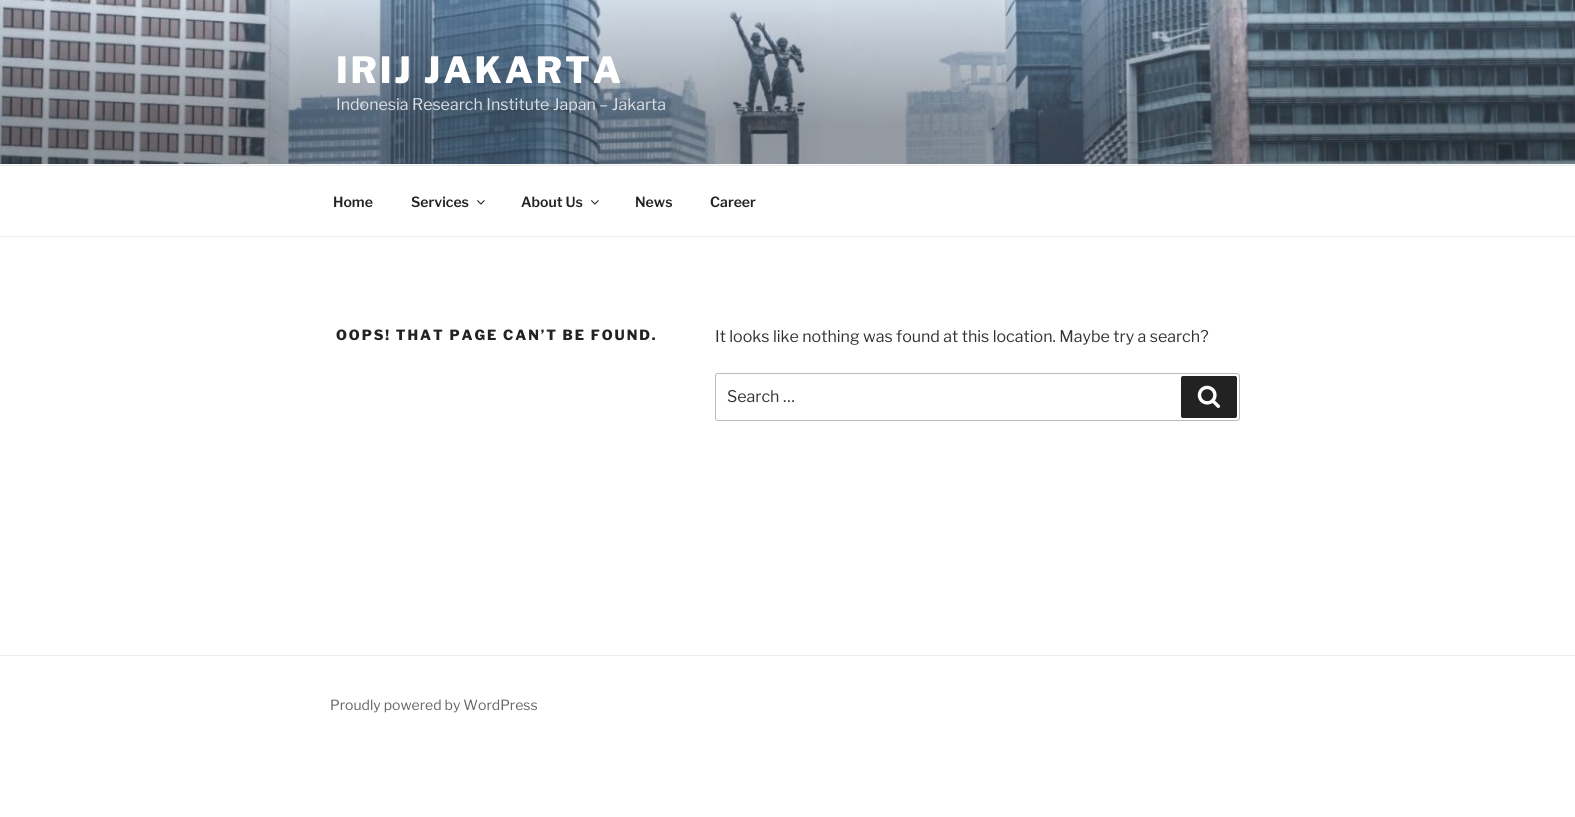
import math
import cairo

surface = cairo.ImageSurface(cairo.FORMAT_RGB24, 1575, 817)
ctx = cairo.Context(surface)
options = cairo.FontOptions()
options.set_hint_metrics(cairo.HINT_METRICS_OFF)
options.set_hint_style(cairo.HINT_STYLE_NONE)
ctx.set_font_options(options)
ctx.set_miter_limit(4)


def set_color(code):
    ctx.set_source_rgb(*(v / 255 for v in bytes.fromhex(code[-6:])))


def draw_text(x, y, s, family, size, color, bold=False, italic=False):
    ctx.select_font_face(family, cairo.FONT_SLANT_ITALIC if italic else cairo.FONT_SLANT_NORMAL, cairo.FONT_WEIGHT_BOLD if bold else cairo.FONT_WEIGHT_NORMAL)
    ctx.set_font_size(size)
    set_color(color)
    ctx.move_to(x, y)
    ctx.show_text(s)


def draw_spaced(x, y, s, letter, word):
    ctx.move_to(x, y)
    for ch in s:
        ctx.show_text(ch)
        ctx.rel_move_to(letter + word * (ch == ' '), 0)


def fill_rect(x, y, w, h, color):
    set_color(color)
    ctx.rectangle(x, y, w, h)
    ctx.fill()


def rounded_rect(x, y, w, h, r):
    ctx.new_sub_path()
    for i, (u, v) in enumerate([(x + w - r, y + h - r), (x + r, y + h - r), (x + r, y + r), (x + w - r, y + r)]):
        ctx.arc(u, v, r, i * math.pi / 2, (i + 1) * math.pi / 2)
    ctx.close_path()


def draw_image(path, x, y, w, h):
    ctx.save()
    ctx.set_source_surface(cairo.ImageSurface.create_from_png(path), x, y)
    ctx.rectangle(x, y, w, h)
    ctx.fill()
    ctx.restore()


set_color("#ffffff")
ctx.paint()
fill_rect(0, 164, 1575, 1, "#fafafa")
draw_image("assets/img1.png", 0, 0, 1575, 164)
ctx.select_font_face("Libre Franklin ExtraBold")
ctx.set_font_size(36)
set_color("#ffffff")
draw_spaced(336, 83, "IRIJ JAKARTA", 2.9, 0)
draw_text(336, 110, "Indonesia Research Institute Japan – Jakarta", "Libre Franklin", 16, "#dce0e4")
fill_rect(0, 165, 1575, 1, "#eeeeee")
fill_rect(0, 236, 1575, 1, "#eeeeee")
draw_text(333, 207, "Home", "Libre Franklin SemiBold", 14, "#222222")
draw_text(411, 207, "Services", "Libre Franklin SemiBold", 14, "#222222")
draw_image("assets/img2.png", 477, 200, 8, 5)
draw_text(521, 207, "About Us", "Libre Franklin SemiBold", 14, "#222222")
draw_image("assets/img2.png", 591, 200, 8, 5)
draw_text(635, 207, "News", "Libre Franklin SemiBold", 14, "#222222")
draw_text(710, 207, "Career", "Libre Franklin SemiBold", 14, "#222222")
ctx.select_font_face("Libre Franklin ExtraBold")
draw_spaced(336, 340, "OOPS! THAT PAGE CAN’T BE FOUND.", 1.95, 0)
draw_text(715, 342, "It looks like nothing was found at this location. Maybe try a search?", "Libre Franklin", 16, "#333333")
rounded_rect(715.5, 373.5, 524, 47, 2.5)
set_color("#bbbbbb")
ctx.set_line_width(1)
ctx.stroke()
draw_text(727, 402, "Search …", "Libre Franklin", 16, "#333333")
set_color("#222222")
rounded_rect(1181, 376, 56, 42, 2)
ctx.fill()
draw_image("assets/img3.png", 1197, 385, 23, 23)
fill_rect(0, 655, 1575, 1, "#eeeeee")
draw_text(330, 710, "Proudly powered by WordPress", "Libre Franklin", 14, "#666666")
surface.write_to_png("output.png")
